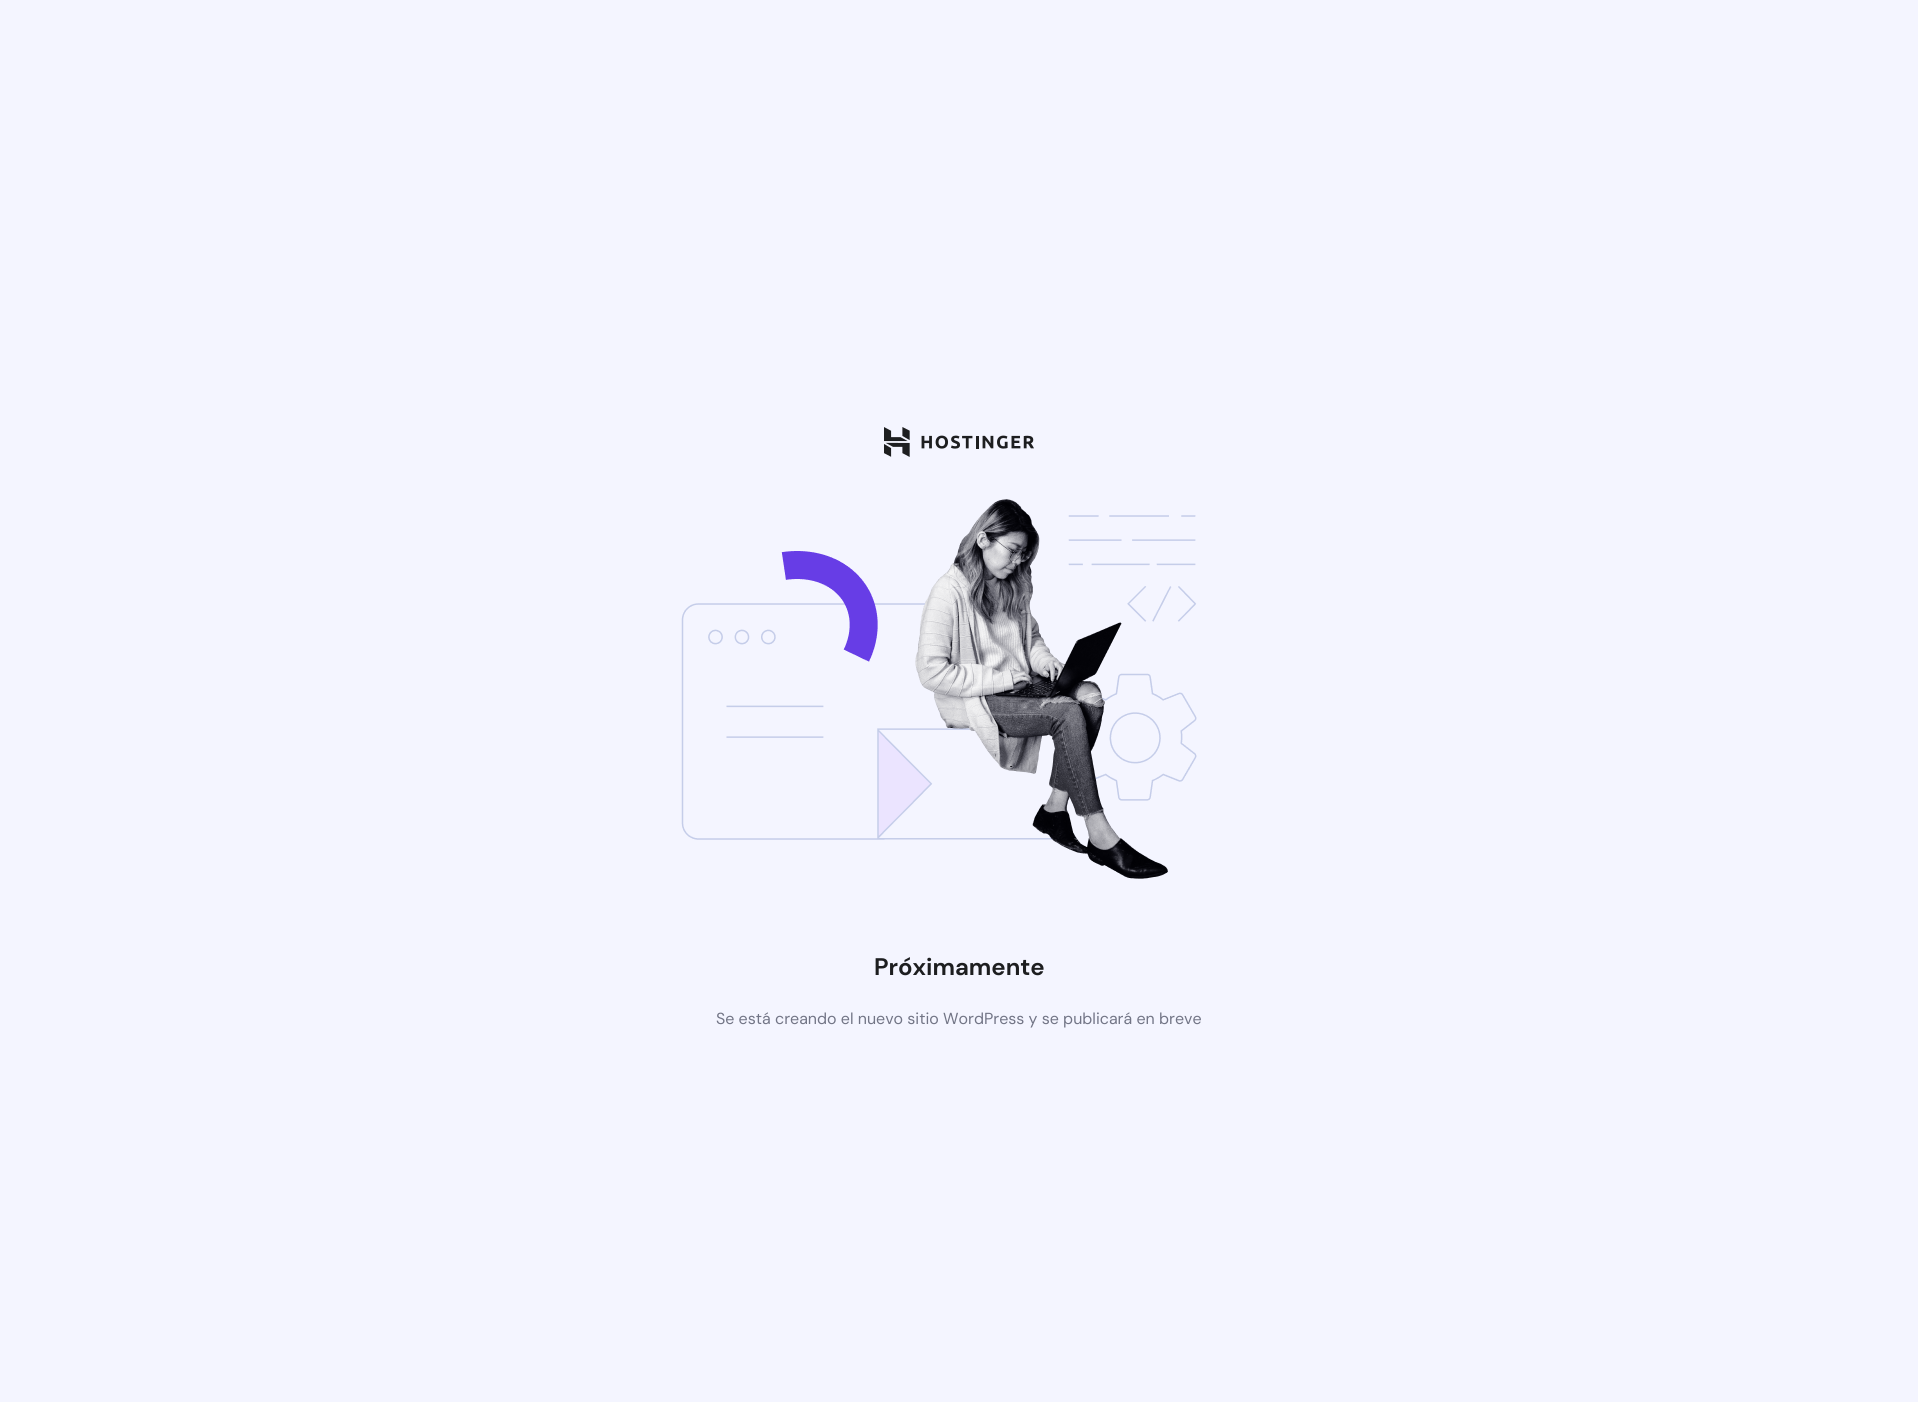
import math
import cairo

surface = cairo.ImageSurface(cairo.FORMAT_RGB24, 1918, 1402)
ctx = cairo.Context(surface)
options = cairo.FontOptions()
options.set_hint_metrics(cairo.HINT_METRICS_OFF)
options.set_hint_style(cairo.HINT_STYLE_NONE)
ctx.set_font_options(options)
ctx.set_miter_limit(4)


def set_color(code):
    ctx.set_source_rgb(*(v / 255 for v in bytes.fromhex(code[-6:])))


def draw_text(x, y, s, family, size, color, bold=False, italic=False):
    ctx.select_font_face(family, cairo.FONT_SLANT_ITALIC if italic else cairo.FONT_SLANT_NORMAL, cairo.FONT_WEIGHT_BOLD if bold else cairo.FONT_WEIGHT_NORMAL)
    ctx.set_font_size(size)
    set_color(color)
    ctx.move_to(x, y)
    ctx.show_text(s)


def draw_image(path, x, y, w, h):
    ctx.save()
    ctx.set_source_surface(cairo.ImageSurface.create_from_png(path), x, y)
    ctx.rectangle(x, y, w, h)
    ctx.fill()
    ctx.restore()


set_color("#f4f5ff")
ctx.paint()
draw_image("assets/img1.png", 884, 427, 150, 30)
draw_image("assets/img2.png", 681, 499, 516, 380)
draw_text(874, 975, "Próximamente", "DM Sans", 24, "#1d1e20", bold=True)
draw_text(716, 1024, "Se está creando el nuevo sitio WordPress y se publicará en breve", "DM Sans", 16, "#727586")
surface.write_to_png("output.png")
